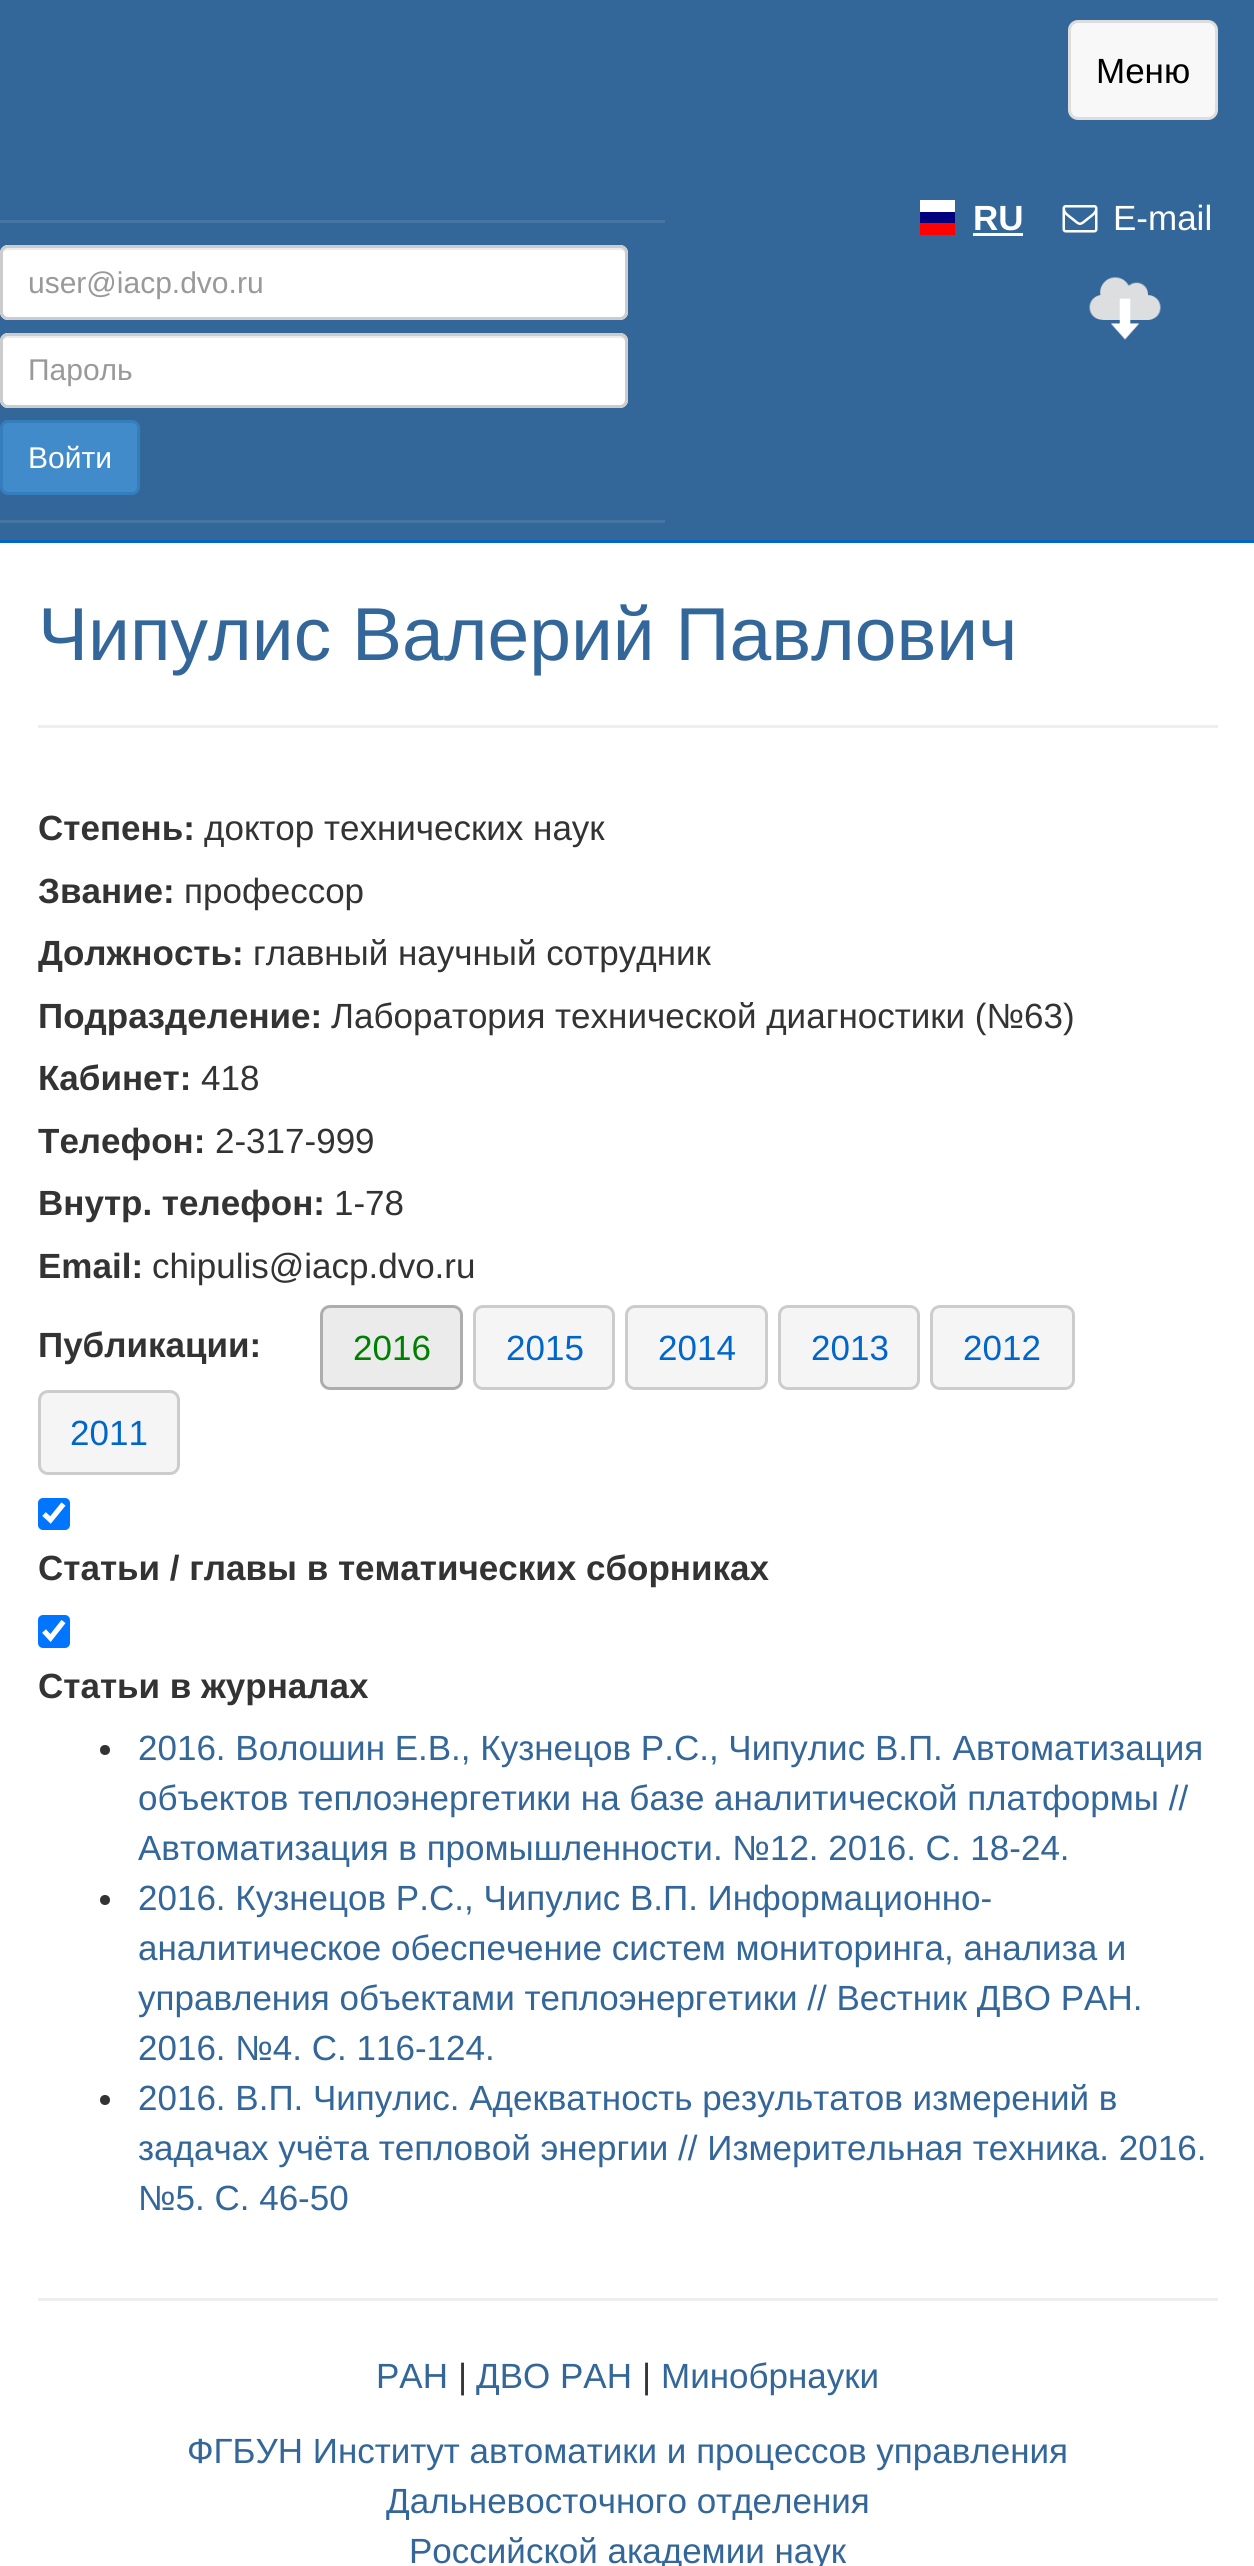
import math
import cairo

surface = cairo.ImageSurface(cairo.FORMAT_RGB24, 1254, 2566)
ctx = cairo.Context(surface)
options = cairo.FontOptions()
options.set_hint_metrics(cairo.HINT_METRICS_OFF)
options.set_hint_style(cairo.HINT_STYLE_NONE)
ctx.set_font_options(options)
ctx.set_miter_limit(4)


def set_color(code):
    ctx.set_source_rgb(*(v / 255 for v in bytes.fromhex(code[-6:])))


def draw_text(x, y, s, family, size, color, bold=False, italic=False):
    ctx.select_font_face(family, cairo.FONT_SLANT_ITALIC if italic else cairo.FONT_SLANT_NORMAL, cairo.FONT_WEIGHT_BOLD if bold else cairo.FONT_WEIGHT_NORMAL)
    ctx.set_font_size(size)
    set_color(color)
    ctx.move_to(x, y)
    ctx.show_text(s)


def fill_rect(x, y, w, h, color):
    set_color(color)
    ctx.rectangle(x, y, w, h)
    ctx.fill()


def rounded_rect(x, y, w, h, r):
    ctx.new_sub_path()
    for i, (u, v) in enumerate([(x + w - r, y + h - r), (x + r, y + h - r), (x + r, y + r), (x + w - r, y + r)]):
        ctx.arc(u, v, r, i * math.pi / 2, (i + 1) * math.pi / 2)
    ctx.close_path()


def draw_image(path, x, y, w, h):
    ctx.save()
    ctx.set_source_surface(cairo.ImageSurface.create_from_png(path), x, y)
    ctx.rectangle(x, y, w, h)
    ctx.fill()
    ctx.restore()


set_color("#ffffff")
ctx.paint()
fill_rect(0, 0, 1254, 540, "#336699")
fill_rect(0, 540, 1254, 3, "#0066cc")
set_color("#f8f8f8")
rounded_rect(1069.5, 21.5, 147, 97, 8.5)
ctx.fill_preserve()
set_color("#dddddd")
ctx.set_line_width(3)
ctx.stroke()
draw_text(1096, 83, "Меню", "Liberation Sans", 35, "#000000")
fill_rect(920, 200, 35, 12, "#ffffff")
fill_rect(920, 212, 35, 11, "#01017e")
fill_rect(920, 223, 35, 12, "#fe0101")
draw_text(973, 230, "RU", "Liberation Sans", 35, "#ffffff", bold=True)
fill_rect(973, 233, 50, 3, "#ffffff")
draw_image("assets/img1.png", 1062, 205, 36, 28)
draw_text(1113, 230, "E-mail", "Liberation Sans", 35, "#ffffff")
draw_image("assets/img2.png", 1089, 277, 72, 63)
fill_rect(0, 520, 665, 3, "#4775a3")
fill_rect(0, 220, 665, 3, "#4775a3")
set_color("#ffffff")
rounded_rect(0, 245, 628, 75, 8)
ctx.fill()
set_color("#ececec")
ctx.new_path()
ctx.move_to(8, 250)
ctx.line_to(620, 250)
ctx.curve_to(623, 250, 625, 252, 625, 255)
ctx.line_to(625, 253)
ctx.curve_to(625, 250, 623, 248, 620, 248)
ctx.line_to(8, 248)
ctx.curve_to(6, 248, 3, 250, 3, 252)
ctx.curve_to(4, 251, 6, 250, 8, 250)
ctx.close_path()
ctx.fill()
rounded_rect(1.5, 246.5, 625, 72, 6.5)
set_color("#cccccc")
ctx.stroke()
draw_text(28, 293, "user@iacp.dvo.ru", "Liberation Sans", 30, "#999999")
set_color("#ffffff")
rounded_rect(0, 333, 628, 75, 8)
ctx.fill()
set_color("#ececec")
ctx.new_path()
ctx.move_to(8, 338)
ctx.line_to(620, 338)
ctx.curve_to(623, 338, 625, 340, 625, 342)
ctx.line_to(625, 340)
ctx.curve_to(625, 337, 623, 335, 620, 335)
ctx.line_to(8, 335)
ctx.curve_to(5, 335, 3, 337, 3, 340)
ctx.curve_to(4, 339, 6, 338, 8, 338)
ctx.close_path()
ctx.fill()
rounded_rect(1.5, 334.5, 625, 72, 6.5)
set_color("#cccccc")
ctx.stroke()
draw_text(28, 380, "Пароль", "Liberation Sans", 30, "#999999")
set_color("#428bca")
rounded_rect(1.5, 421.5, 137, 72, 6.5)
ctx.fill_preserve()
set_color("#357ebd")
ctx.stroke()
draw_text(28, 468, "Войти", "Liberation Sans", 30, "#ffffff")
draw_text(38, 660, "Чипулис Валерий Павлович", "Liberation Sans", 75, "#336699")
fill_rect(38, 725, 1180, 3, "#eeeeee")
draw_text(38, 840, "Степень:", "Liberation Sans", 35, "#333333", bold=True)
draw_text(204, 840, "доктор технических наук", "Liberation Sans", 35, "#333333")
draw_text(38, 903, "Звание:", "Liberation Sans", 35, "#333333", bold=True)
draw_text(184, 903, "профессор", "Liberation Sans", 35, "#333333")
draw_text(38, 965, "Должность:", "Liberation Sans", 35, "#333333", bold=True)
draw_text(253, 965, "главный научный сотрудник", "Liberation Sans", 35, "#333333")
draw_text(38, 1028, "Подразделение:", "Liberation Sans", 35, "#333333", bold=True)
draw_text(331, 1028, "Лаборатория технической диагностики (№63)", "Liberation Sans", 35, "#333333")
draw_text(38, 1090, "Кабинет:", "Liberation Sans", 35, "#333333", bold=True)
draw_text(201, 1090, "418", "Liberation Sans", 35, "#333333")
draw_text(38, 1153, "Телефон:", "Liberation Sans", 35, "#333333", bold=True)
draw_text(215, 1153, "2-317-999", "Liberation Sans", 35, "#333333")
draw_text(38, 1215, "Внутр. телефон:", "Liberation Sans", 35, "#333333", bold=True)
draw_text(334, 1215, "1-78", "Liberation Sans", 35, "#333333")
draw_text(38, 1278, "Email:", "Liberation Sans", 35, "#333333", bold=True)
draw_text(152, 1278, "chipulis@iacp.dvo.ru", "Liberation Sans", 35, "#333333")
draw_text(38, 1357, "Публикации:", "Liberation Sans", 35, "#333333", bold=True)
set_color("#ebebeb")
rounded_rect(321.5, 1306.5, 140, 82, 8.5)
ctx.fill_preserve()
set_color("#adadad")
ctx.stroke()
draw_text(353, 1360, "2016", "Liberation Sans", 35, "#008000")
set_color("#f5f5f5")
rounded_rect(474.5, 1306.5, 139, 82, 8.5)
ctx.fill_preserve()
set_color("#cccccc")
ctx.stroke()
draw_text(506, 1360, "2015", "Liberation Sans", 35, "#0066cc")
set_color("#f5f5f5")
rounded_rect(626.5, 1306.5, 140, 82, 8.5)
ctx.fill_preserve()
set_color("#cccccc")
ctx.stroke()
draw_text(658, 1360, "2014", "Liberation Sans", 35, "#0066cc")
set_color("#f5f5f5")
rounded_rect(779.5, 1306.5, 139, 82, 8.5)
ctx.fill_preserve()
set_color("#cccccc")
ctx.stroke()
draw_text(811, 1360, "2013", "Liberation Sans", 35, "#0066cc")
set_color("#f5f5f5")
rounded_rect(931.5, 1306.5, 142, 82, 8.5)
ctx.fill_preserve()
set_color("#cccccc")
ctx.stroke()
draw_text(963, 1360, "2012", "Liberation Sans", 35, "#0066cc")
set_color("#f5f5f5")
rounded_rect(39.5, 1391.5, 139, 82, 8.5)
ctx.fill_preserve()
set_color("#cccccc")
ctx.stroke()
draw_text(70, 1445, "2011", "Liberation Sans", 35, "#0066cc")
set_color("#0075ff")
rounded_rect(38, 1498, 32, 32, 5)
ctx.fill()
ctx.new_path()
ctx.move_to(44, 1514)
ctx.line_to(50.5, 1520)
ctx.line_to(63.5, 1504)
set_color("#ffffff")
ctx.set_line_width(5.2)
ctx.stroke()
draw_text(38, 1580, "Статьи / главы в тематических сборниках", "Liberation Sans", 35, "#333333", bold=True)
set_color("#0075ff")
rounded_rect(38, 1615, 32, 33, 5)
ctx.fill()
ctx.new_path()
ctx.move_to(44, 1631)
ctx.line_to(50.5, 1638)
ctx.line_to(63.5, 1621.5)
set_color("#ffffff")
ctx.stroke()
draw_text(38, 1698, "Статьи в журналах", "Liberation Sans", 35, "#333333", bold=True)
ctx.new_path()
ctx.arc(105, 1750, 5, 0, 2 * math.pi)
ctx.fill()
draw_text(138, 1760, "2016. Волошин Е.В., Кузнецов Р.С., Чипулис В.П. Автоматизация", "Liberation Sans", 35, "#336699")
draw_text(138, 1810, "объектов теплоэнергетики на базе аналитической платформы //", "Liberation Sans", 35, "#336699")
draw_text(138, 1860, "Автоматизация в промышленности. №12. 2016. C. 18-24.", "Liberation Sans", 35, "#336699")
set_color("#333333")
ctx.new_path()
ctx.arc(105, 1900, 5, 0, 2 * math.pi)
ctx.fill()
draw_text(138, 1910, "2016. Кузнецов Р.С., Чипулис В.П. Информационно-", "Liberation Sans", 35, "#336699")
draw_text(138, 1960, "аналитическое обеспечение систем мониторинга, анализа и", "Liberation Sans", 35, "#336699")
draw_text(138, 2010, "управления объектами теплоэнергетики // Вестник ДВО РАН.", "Liberation Sans", 35, "#336699")
draw_text(138, 2060, "2016. №4. С. 116-124.", "Liberation Sans", 35, "#336699")
set_color("#333333")
ctx.new_path()
ctx.arc(105, 2100, 5, 0, 2 * math.pi)
ctx.fill()
draw_text(138, 2110, "2016. В.П. Чипулис. Адекватность результатов измерений в", "Liberation Sans", 35, "#336699")
draw_text(138, 2160, "задачах учёта тепловой энергии // Измерительная техника. 2016.", "Liberation Sans", 35, "#336699")
draw_text(138, 2210, "№5. С. 46-50", "Liberation Sans", 35, "#336699")
fill_rect(38, 2298, 1180, 3, "#eeeeee")
draw_text(376, 2388, "РАН", "Liberation Sans", 35, "#336699")
draw_text(458, 2388, "|", "Liberation Sans", 35, "#333333")
draw_text(476, 2388, "ДВО РАН", "Liberation Sans", 35, "#336699")
draw_text(642, 2388, "|", "Liberation Sans", 35, "#333333")
draw_text(661, 2388, "Минобрнауки", "Liberation Sans", 35, "#336699")
draw_text(187, 2463, "ФГБУН Институт автоматики и процессов управления", "Liberation Sans", 35, "#336699")
draw_text(386, 2513, "Дальневосточного отделения", "Liberation Sans", 35, "#336699")
draw_text(409, 2563, "Российской академии наук", "Liberation Sans", 35, "#336699")
surface.write_to_png("output.png")
